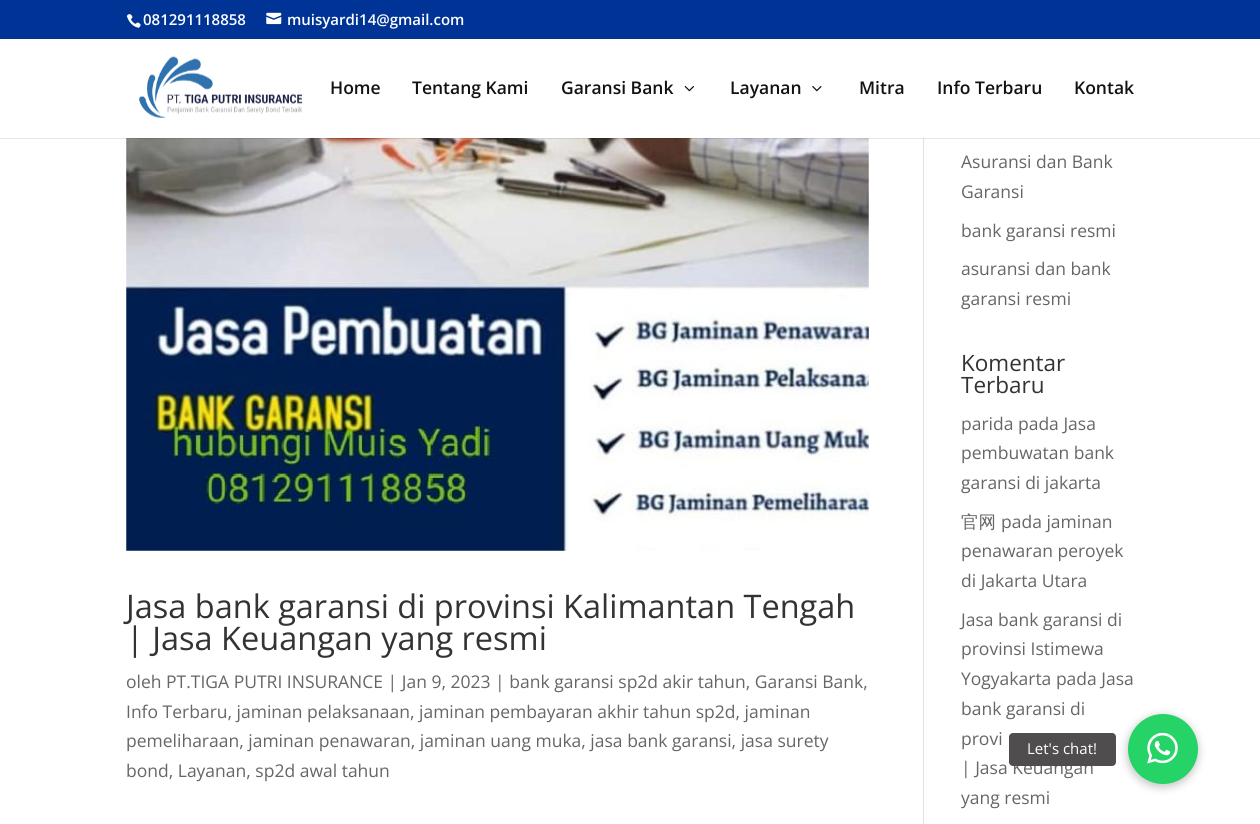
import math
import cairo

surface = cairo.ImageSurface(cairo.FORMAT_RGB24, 1260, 824)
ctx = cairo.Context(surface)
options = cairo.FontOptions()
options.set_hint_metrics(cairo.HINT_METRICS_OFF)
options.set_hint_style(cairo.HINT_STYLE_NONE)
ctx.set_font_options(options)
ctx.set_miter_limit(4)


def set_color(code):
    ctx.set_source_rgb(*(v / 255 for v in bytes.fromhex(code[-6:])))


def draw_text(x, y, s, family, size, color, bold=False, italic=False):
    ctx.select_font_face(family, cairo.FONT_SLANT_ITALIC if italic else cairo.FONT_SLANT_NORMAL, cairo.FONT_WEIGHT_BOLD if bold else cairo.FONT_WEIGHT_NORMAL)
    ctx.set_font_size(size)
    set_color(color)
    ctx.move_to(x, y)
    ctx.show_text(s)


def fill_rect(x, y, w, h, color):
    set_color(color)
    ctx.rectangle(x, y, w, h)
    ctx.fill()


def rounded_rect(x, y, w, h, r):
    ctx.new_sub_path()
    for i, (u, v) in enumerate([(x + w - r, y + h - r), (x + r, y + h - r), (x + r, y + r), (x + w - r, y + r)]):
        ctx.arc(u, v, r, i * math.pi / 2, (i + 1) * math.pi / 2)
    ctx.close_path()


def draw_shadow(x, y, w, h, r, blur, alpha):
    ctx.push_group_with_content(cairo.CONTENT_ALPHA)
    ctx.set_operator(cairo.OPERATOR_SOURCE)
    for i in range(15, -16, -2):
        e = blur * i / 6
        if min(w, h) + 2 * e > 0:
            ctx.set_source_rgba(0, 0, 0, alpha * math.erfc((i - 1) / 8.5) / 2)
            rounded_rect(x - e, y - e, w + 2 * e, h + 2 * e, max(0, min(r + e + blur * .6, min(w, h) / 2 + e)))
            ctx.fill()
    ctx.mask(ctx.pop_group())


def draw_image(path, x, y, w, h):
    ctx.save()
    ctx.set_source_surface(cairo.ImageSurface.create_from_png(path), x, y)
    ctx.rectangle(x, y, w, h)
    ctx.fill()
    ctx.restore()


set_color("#ffffff")
ctx.paint()
fill_rect(0, 0, 1260, 39, "#003396")
draw_image("assets/img1.png", 126, 14, 15, 14)
draw_text(143, 25, "081291118858", "Open Sans SemiBold", 15, "#ffffff")
draw_image("assets/img2.png", 266, 12, 16, 13)
draw_text(287, 25, "muisyardi14@gmail.com", "Open Sans SemiBold", 15, "#ffffff")
fill_rect(923, 138, 1, 686, "#e2e2e2")
draw_image("assets/img6.png", 126, 138, 743, 413)
ctx.set_source_rgba(0, 0, 0, 0.1)
ctx.rectangle(0, 138, 1260, 1)
ctx.fill()
draw_image("assets/img3.png", 139, 56, 164, 62)
draw_text(330, 94, "Home", "Open Sans SemiBold", 17.5, "#121212")
draw_text(412, 94, "Tentang Kami", "Open Sans SemiBold", 17.5, "#121212")
draw_text(561, 94, "Garansi Bank", "Open Sans SemiBold", 17.5, "#121212")
draw_image("assets/img4.png", 684, 86, 10, 6)
draw_text(730, 94, "Layanan", "Open Sans SemiBold", 17.5, "#121212")
draw_image("assets/img5.png", 812, 86, 10, 6)
draw_text(859, 94, "Mitra", "Open Sans SemiBold", 17.5, "#121212")
draw_text(937, 94, "Info Terbaru", "Open Sans SemiBold", 17.5, "#121212")
draw_text(1074, 94, "Kontak", "Open Sans SemiBold", 17.5, "#121212")
draw_text(126, 618, "Jasa bank garansi di provinsi Kalimantan Tengah", "Open Sans", 32.5, "#333333")
draw_text(126, 650, "| Jasa Keuangan yang resmi", "Open Sans", 32.5, "#333333")
draw_text(126, 688, "oleh PT.TIGA PUTRI INSURANCE | Jan 9, 2023 | bank garansi sp2d akir tahun, Garansi Bank,", "Open Sans", 17.5, "#666666")
draw_text(126, 718, "Info Terbaru, jaminan pelaksanaan, jaminan pembayaran akhir tahun sp2d, jaminan", "Open Sans", 17.5, "#666666")
draw_text(126, 747, "pemeliharaan, jaminan penawaran, jaminan uang muka, jasa bank garansi, jasa surety", "Open Sans", 17.5, "#666666")
draw_text(126, 777, "bond, Layanan, sp2d awal tahun", "Open Sans", 17.5, "#666666")
draw_text(961, 168, "Asuransi dan Bank", "Open Sans", 17.5, "#666666")
draw_text(961, 198, "Garansi", "Open Sans", 17.5, "#666666")
draw_text(961, 237, "bank garansi resmi", "Open Sans", 17.5, "#666666")
draw_text(961, 275, "asuransi dan bank", "Open Sans", 17.5, "#666666")
draw_text(961, 305, "garansi resmi", "Open Sans", 17.5, "#666666")
draw_text(961, 371, "Komentar", "Open Sans", 22.5, "#333333")
draw_text(961, 393, "Terbaru", "Open Sans", 22.5, "#333333")
draw_text(961, 430, "parida pada Jasa", "Open Sans", 17.5, "#666666")
draw_text(961, 459, "pembuwatan bank", "Open Sans", 17.5, "#666666")
draw_text(961, 489, "garansi di jakarta", "Open Sans", 17.5, "#666666")
draw_text(961, 528, "官网", "WenQuanYi Zen Hei Medium", 17.5, "#666666")
draw_text(1001, 528, "pada jaminan", "Open Sans", 17.5, "#666666")
draw_text(961, 557, "penawaran peroyek", "Open Sans", 17.5, "#666666")
draw_text(961, 587, "di Jakarta Utara", "Open Sans", 17.5, "#666666")
draw_text(961, 626, "Jasa bank garansi di", "Open Sans", 17.5, "#666666")
draw_text(961, 655, "provinsi Istimewa", "Open Sans", 17.5, "#666666")
draw_text(961, 685, "Yogyakarta pada Jasa", "Open Sans", 17.5, "#666666")
draw_text(961, 715, "bank garansi di", "Open Sans", 17.5, "#666666")
draw_text(961, 745, "provi", "Open Sans", 17.5, "#666666")
draw_text(961, 774, "| Jasa Keuangan", "Open Sans", 17.5, "#666666")
draw_text(961, 804, "yang resmi", "Open Sans", 17.5, "#666666")
set_color("#000000")
draw_shadow(1126, 715, 73, 73, 36.5, 4, 0.2)
set_color("#25d366")
ctx.arc(1163, 749, 35, 0, 2 * math.pi)
ctx.fill()
ctx.set_source_rgba(0.306, 0.298, 0.298, 0.99)
rounded_rect(1009, 733, 107, 33, 4)
ctx.fill()
draw_text(1027, 754, "Let's chat!", "Open Sans", 15, "#ffffff")
draw_image("assets/img7.png", 1147, 732, 31, 32)
surface.write_to_png("output.png")
